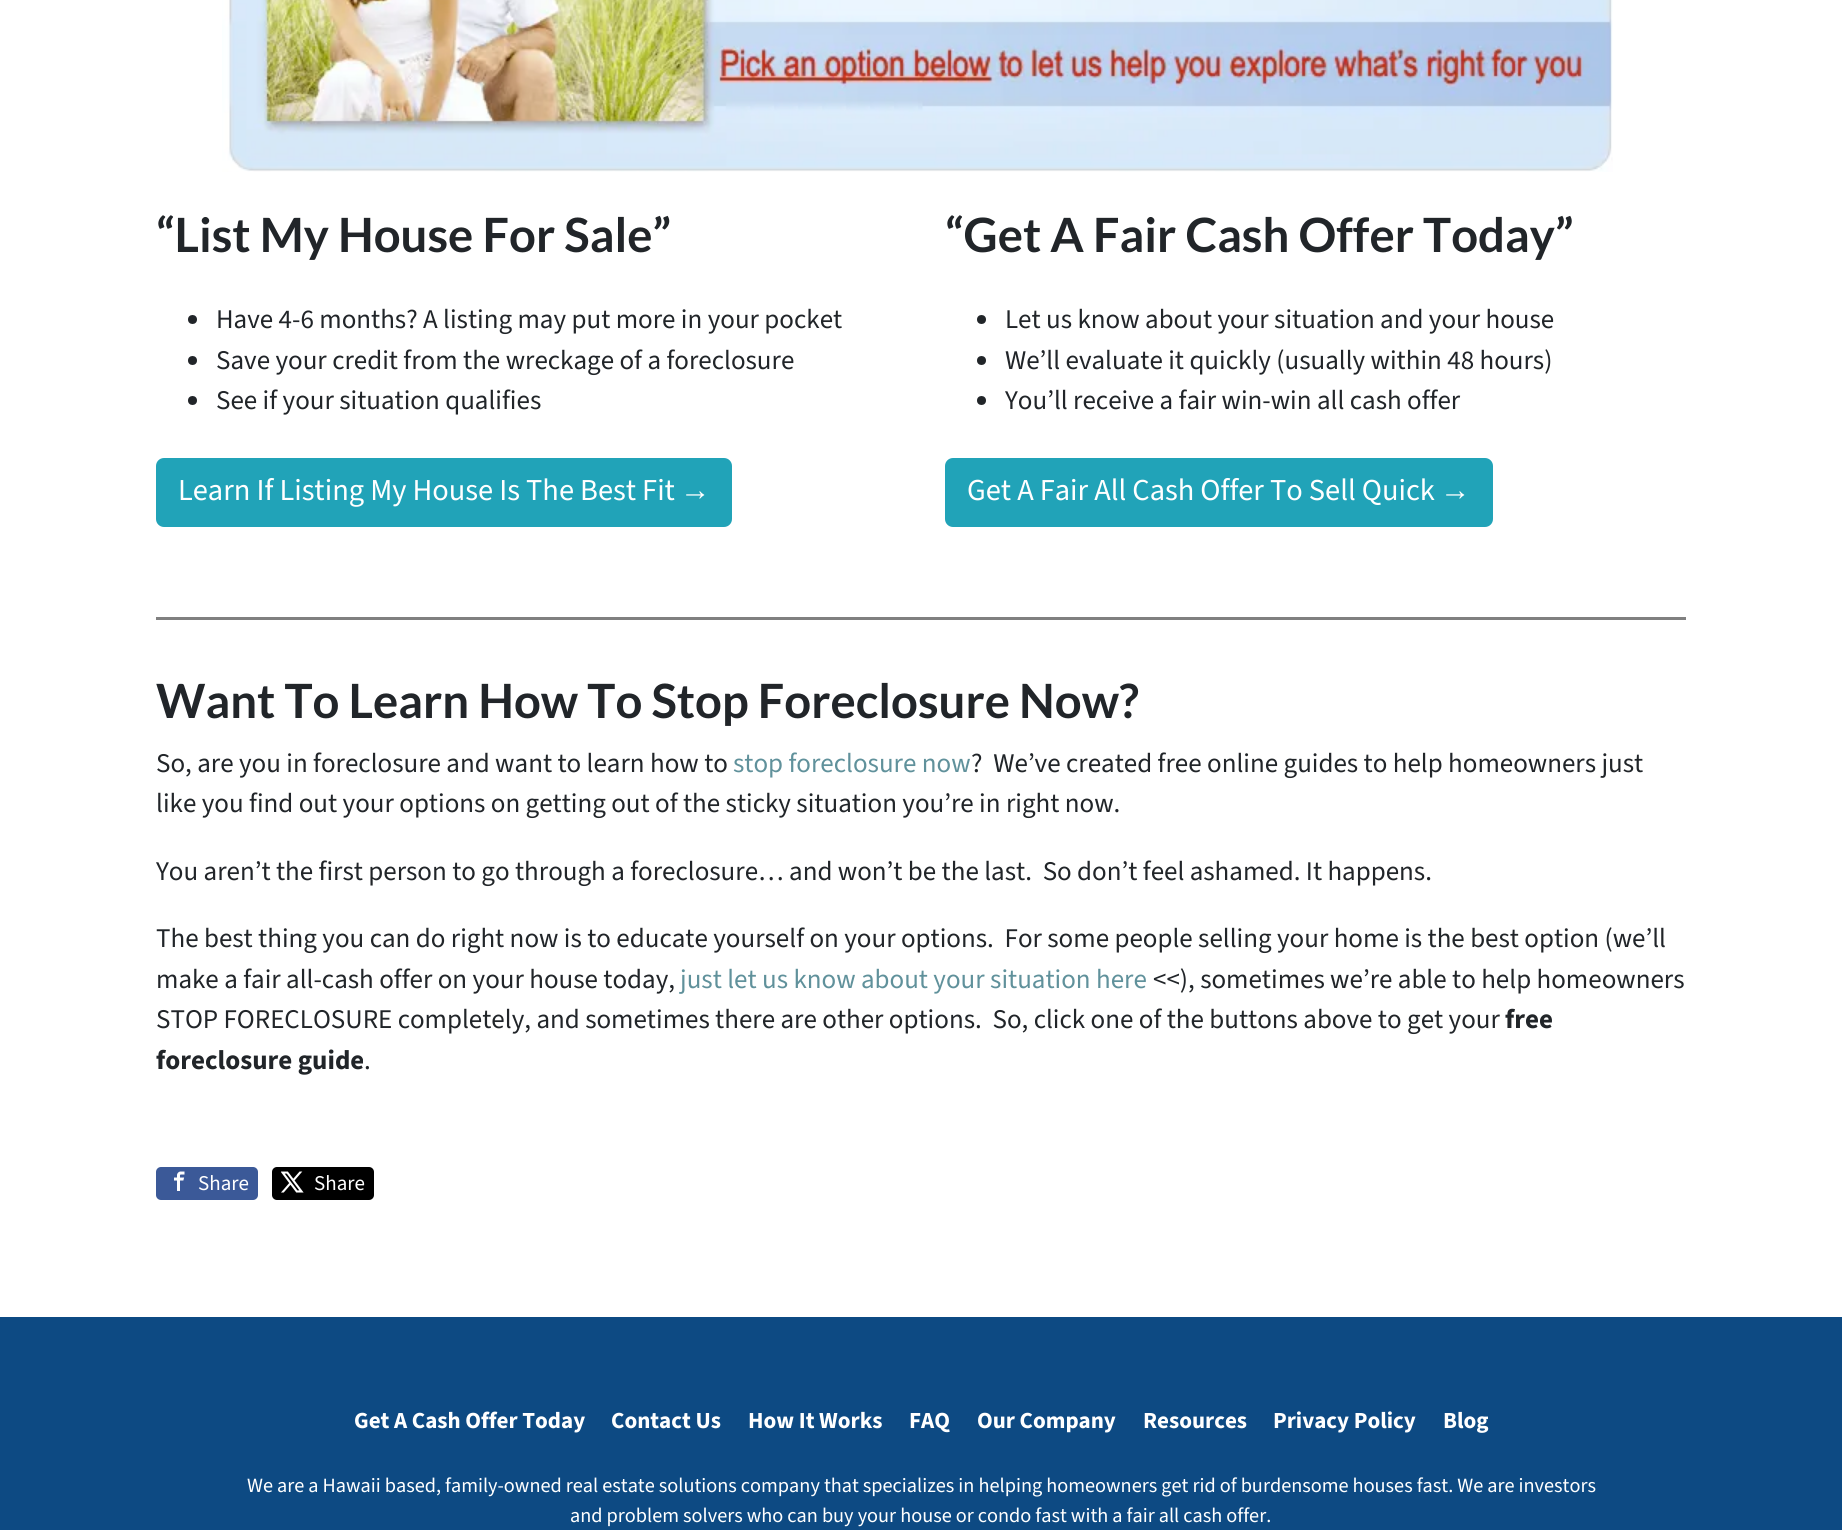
import math
import cairo

surface = cairo.ImageSurface(cairo.FORMAT_RGB24, 1842, 1530)
ctx = cairo.Context(surface)
options = cairo.FontOptions()
options.set_hint_metrics(cairo.HINT_METRICS_OFF)
options.set_hint_style(cairo.HINT_STYLE_NONE)
ctx.set_font_options(options)
ctx.set_miter_limit(4)


def set_color(code):
    ctx.set_source_rgb(*(v / 255 for v in bytes.fromhex(code[-6:])))


def draw_text(x, y, s, family, size, color, bold=False, italic=False):
    ctx.select_font_face(family, cairo.FONT_SLANT_ITALIC if italic else cairo.FONT_SLANT_NORMAL, cairo.FONT_WEIGHT_BOLD if bold else cairo.FONT_WEIGHT_NORMAL)
    ctx.set_font_size(size)
    set_color(color)
    ctx.move_to(x, y)
    ctx.show_text(s)


def fill_rect(x, y, w, h, color):
    set_color(color)
    ctx.rectangle(x, y, w, h)
    ctx.fill()


def rounded_rect(x, y, w, h, r):
    ctx.new_sub_path()
    for i, (u, v) in enumerate([(x + w - r, y + h - r), (x + r, y + h - r), (x + r, y + r), (x + w - r, y + r)]):
        ctx.arc(u, v, r, i * math.pi / 2, (i + 1) * math.pi / 2)
    ctx.close_path()


def draw_image(path, x, y, w, h):
    ctx.save()
    ctx.set_source_surface(cairo.ImageSurface.create_from_png(path), x, y)
    ctx.rectangle(x, y, w, h)
    ctx.fill()
    ctx.restore()


set_color("#ffffff")
ctx.paint()
draw_image("assets/img1.png", 222, 0, 1391, 172)
draw_text(156, 252, "“List My House For Sale”", "Lato", 47.25, "#212529", bold=True)
ctx.new_path()
ctx.arc(192.5, 319.5, 4.5, 0, 2 * math.pi)
ctx.fill()
draw_text(216, 328, "Have 4-6 months? A listing may put more in your pocket", "Source Sans 3", 27, "#212529")
ctx.new_path()
ctx.arc(192.5, 360.5, 4.5, 0, 2 * math.pi)
ctx.fill()
draw_text(216, 369, "Save your credit from the wreckage of a foreclosure", "Source Sans 3", 27, "#212529")
ctx.new_path()
ctx.arc(192.5, 400.5, 4.5, 0, 2 * math.pi)
ctx.fill()
draw_text(216, 409, "See if your situation qualifies", "Source Sans 3", 27, "#212529")
set_color("#21a3b8")
rounded_rect(157, 459, 574, 67, 7)
ctx.fill_preserve()
ctx.stroke()
draw_text(178, 500, "Learn If Listing My House Is The Best Fit", "Source Sans 3", 30.4, "#ffffff")
draw_text(680, 500, "→", "Liberation Sans", 30.4, "#ffffff")
draw_text(945, 252, "“Get A Fair Cash Offer Today”", "Lato", 47.25, "#212529", bold=True)
ctx.new_path()
ctx.arc(981.5, 319.5, 4.5, 0, 2 * math.pi)
ctx.fill()
draw_text(1005, 328, "Let us know about your situation and your house", "Source Sans 3", 27, "#212529")
ctx.new_path()
ctx.arc(981.5, 360.5, 4.5, 0, 2 * math.pi)
ctx.fill()
draw_text(1005, 369, "We’ll evaluate it quickly (usually within 48 hours)", "Source Sans 3", 27, "#212529")
ctx.new_path()
ctx.arc(981.5, 400.5, 4.5, 0, 2 * math.pi)
ctx.fill()
draw_text(1005, 409, "You’ll receive a fair win-win all cash offer", "Source Sans 3", 27, "#212529")
set_color("#21a3b8")
rounded_rect(946, 459, 546, 67, 7)
ctx.fill_preserve()
ctx.stroke()
draw_text(967, 500, "Get A Fair All Cash Offer To Sell Quick", "Source Sans 3", 30.4, "#ffffff")
draw_text(1440, 500, "→", "Liberation Sans", 30.4, "#ffffff")
fill_rect(156, 617, 1530, 3, "#808080")
draw_text(156, 718, "Want To Learn How To Stop Foreclosure Now?", "Lato", 47.25, "#212529", bold=True)
draw_text(156, 772, "So, are you in foreclosure and want to learn how to", "Source Sans 3", 27, "#212529")
draw_text(733, 772, "stop foreclosure now", "Source Sans 3", 27, "#60919b")
draw_text(971, 772, "?  We’ve created free online guides to help homeowners just", "Source Sans 3", 27, "#212529")
draw_text(156, 812, "like you find out your options on getting out of the sticky situation you’re in right now.", "Source Sans 3", 27, "#212529")
draw_text(156, 880, "You aren’t the first person to go through a foreclosure… and won’t be the last.  So don’t feel ashamed. It happens.", "Source Sans 3", 27, "#212529")
draw_text(156, 947, "The best thing you can do right now is to educate yourself on your options.  For some people selling your home is the best option (we’ll", "Source Sans 3", 27, "#212529")
draw_text(156, 988, "make a fair all-cash offer on your house today,", "Source Sans 3", 27, "#212529")
draw_text(680, 988, "just let us know about your situation here", "Source Sans 3", 27, "#60919b")
draw_text(1153, 988, "<<), sometimes we’re able to help homeowners", "Source Sans 3", 27, "#212529")
draw_text(156, 1028, "STOP FORECLOSURE completely, and sometimes there are other options.  So, click one of the buttons above to get your", "Source Sans 3", 27, "#212529")
draw_text(1505, 1028, "free", "Source Sans 3", 27, "#212529", bold=True)
draw_text(156, 1069, "foreclosure guide", "Source Sans 3", 27, "#212529", bold=True)
draw_text(364, 1069, ".", "Source Sans 3", 27, "#212529")
set_color("#3b5998")
rounded_rect(156, 1167, 102, 33, 5)
ctx.fill()
draw_image("assets/img2.png", 174, 1171, 11, 20)
draw_text(198, 1190, "Share", "Source Sans 3", 21, "#ffffff")
set_color("#000000")
rounded_rect(272, 1167, 102, 33, 5)
ctx.fill()
draw_image("assets/img3.png", 281, 1171, 23, 22)
draw_text(314, 1190, "Share", "Source Sans 3", 21, "#ffffff")
fill_rect(0, 1317, 1842, 213, "#0d4a83")
draw_text(354, 1428, "Get A Cash Offer Today", "Source Sans 3", 23, "#ffffff", bold=True)
draw_text(611, 1428, "Contact Us", "Source Sans 3", 23, "#ffffff", bold=True)
draw_text(748, 1428, "How It Works", "Source Sans 3", 23, "#ffffff", bold=True)
draw_text(909, 1428, "FAQ", "Source Sans 3", 23, "#ffffff", bold=True)
draw_text(977, 1428, "Our Company", "Source Sans 3", 23, "#ffffff", bold=True)
draw_text(1143, 1428, "Resources", "Source Sans 3", 23, "#ffffff", bold=True)
draw_text(1273, 1428, "Privacy Policy", "Source Sans 3", 23, "#ffffff", bold=True)
draw_text(1443, 1428, "Blog", "Source Sans 3", 23, "#ffffff", bold=True)
draw_text(247, 1492, "We are a Hawaii based, family-owned real estate solutions company that specializes in helping homeowners get rid of burdensome houses fast. We are investors", "Source Sans 3", 20.25, "#ffffff")
draw_text(570, 1522, "and problem solvers who can buy your house or condo fast with a fair all cash offer.", "Source Sans 3", 20.25, "#ffffff")
surface.write_to_png("output.png")
